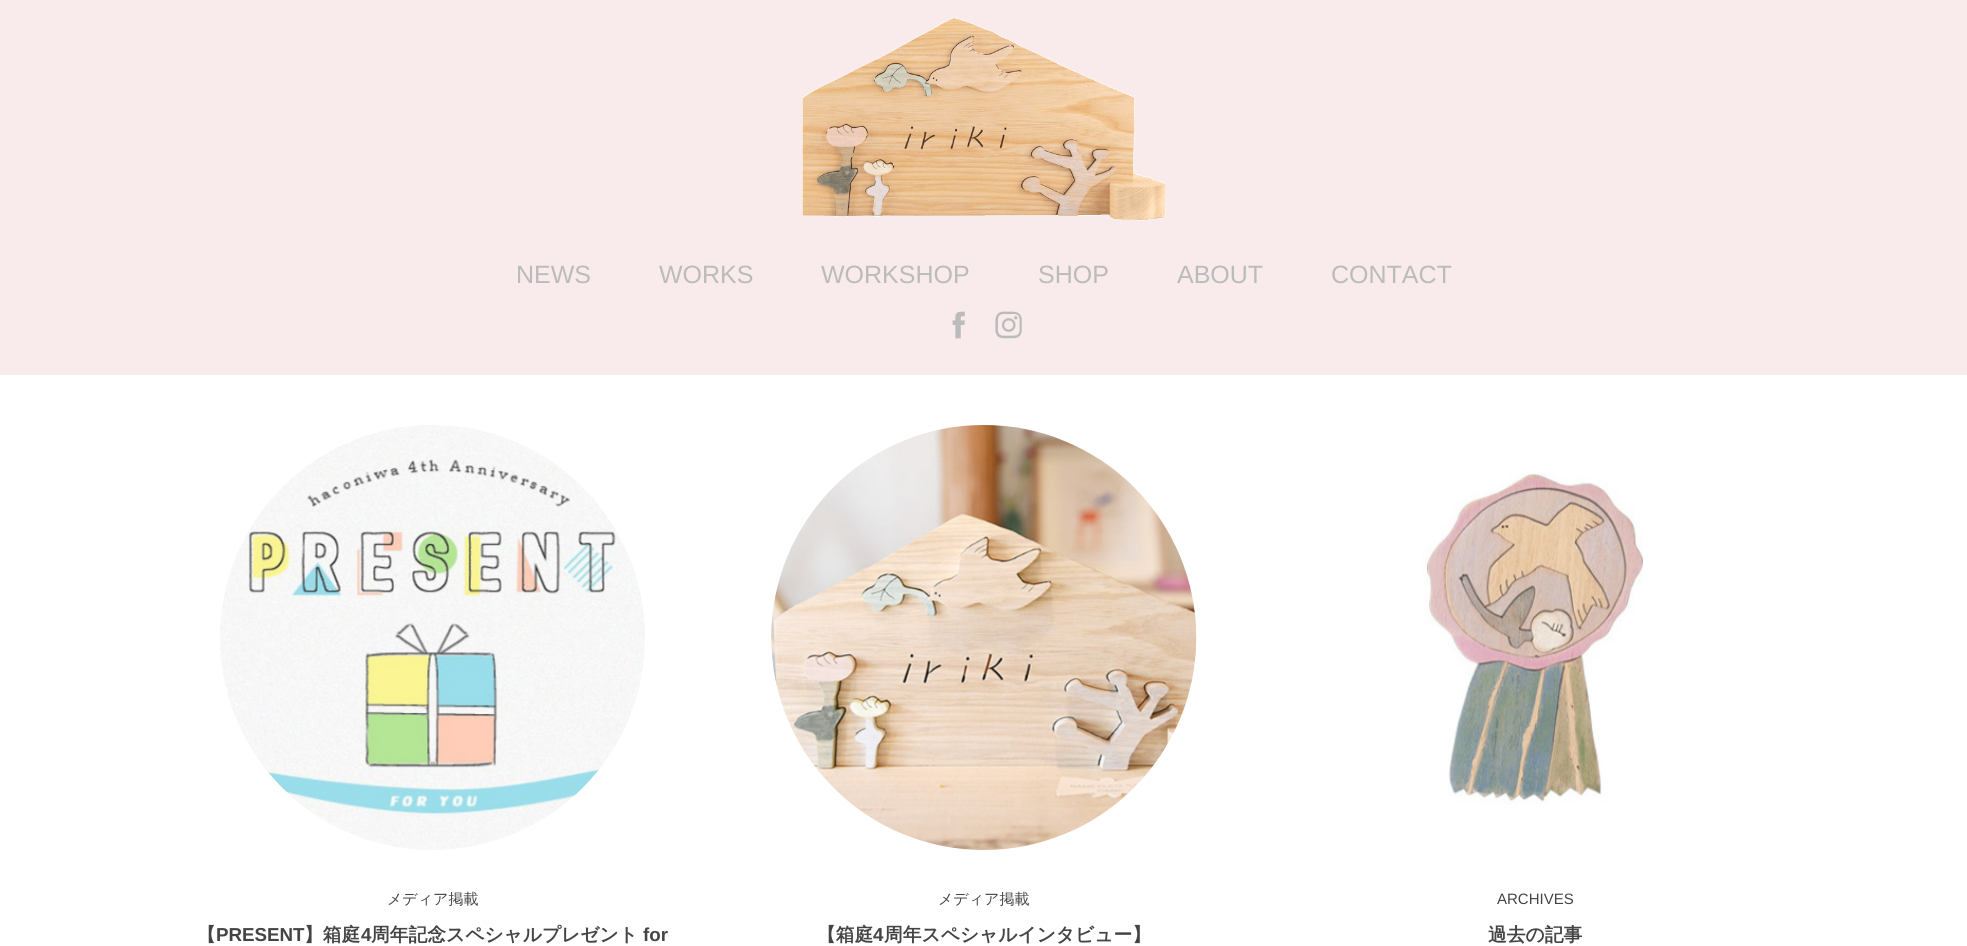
import math
import cairo

surface = cairo.ImageSurface(cairo.FORMAT_RGB24, 1967, 946)
ctx = cairo.Context(surface)
options = cairo.FontOptions()
options.set_hint_metrics(cairo.HINT_METRICS_OFF)
options.set_hint_style(cairo.HINT_STYLE_NONE)
ctx.set_font_options(options)
ctx.set_miter_limit(4)


def set_color(code):
    ctx.set_source_rgb(*(v / 255 for v in bytes.fromhex(code[-6:])))


def draw_text(x, y, s, family, size, color, bold=False, italic=False):
    ctx.select_font_face(family, cairo.FONT_SLANT_ITALIC if italic else cairo.FONT_SLANT_NORMAL, cairo.FONT_WEIGHT_BOLD if bold else cairo.FONT_WEIGHT_NORMAL)
    ctx.set_font_size(size)
    set_color(color)
    ctx.move_to(x, y)
    ctx.show_text(s)


def fill_rect(x, y, w, h, color):
    set_color(color)
    ctx.rectangle(x, y, w, h)
    ctx.fill()


def draw_image(path, x, y, w, h):
    ctx.save()
    ctx.set_source_surface(cairo.ImageSurface.create_from_png(path), x, y)
    ctx.rectangle(x, y, w, h)
    ctx.fill()
    ctx.restore()


set_color("#ffffff")
ctx.paint()
fill_rect(0, 0, 1967, 375, "#f9ebeb")
draw_image("assets/img1.png", 802, 17, 364, 204)
draw_text(516, 283, "NEWS", "Liberation Sans", 25, "#bbbbbb")
draw_text(659, 283, "WORKS", "Liberation Sans", 25, "#bbbbbb")
draw_text(821, 283, "WORKSHOP", "Liberation Sans", 25, "#bbbbbb")
draw_text(1038, 283, "SHOP", "Liberation Sans", 25, "#bbbbbb")
draw_text(1177, 283, "ABOUT", "Liberation Sans", 25, "#bbbbbb")
draw_text(1331, 283, "CONTACT", "Liberation Sans", 25, "#bbbbbb")
draw_image("assets/img2.png", 952, 311, 13, 28)
draw_image("assets/img3.png", 995, 311, 27, 28)
draw_image("assets/img4.png", 220, 425, 425, 425)
draw_text(387, 904, "メディア掲載", "WenQuanYi Zen Hei Medium", 15, "#444444")
draw_text(197, 941, "【", "WenQuanYi Zen Hei", 18.75, "#444444", bold=True)
draw_text(216, 941, "PRESENT", "Liberation Sans", 18.75, "#444444", bold=True)
draw_text(304, 941, "】箱庭", "WenQuanYi Zen Hei", 18.75, "#444444", bold=True)
draw_text(361, 941, "4", "Liberation Sans", 18.75, "#444444", bold=True)
draw_text(371, 941, "周年記念スペシャルプレゼント", "WenQuanYi Zen Hei", 18.75, "#444444", bold=True)
draw_text(643, 941, "for", "Liberation Sans", 18.75, "#444444", bold=True)
draw_image("assets/img5.png", 771, 425, 426, 425)
draw_text(938, 904, "メディア掲載", "WenQuanYi Zen Hei Medium", 15, "#444444")
draw_text(817, 941, "【箱庭", "WenQuanYi Zen Hei", 18.75, "#444444", bold=True)
draw_text(873, 941, "4", "Liberation Sans", 18.75, "#444444", bold=True)
draw_text(884, 941, "周年スペシャルインタビュー】", "WenQuanYi Zen Hei", 18.75, "#444444", bold=True)
draw_image("assets/img6.png", 1423, 473, 220, 331)
draw_text(1497, 904, "ARCHIVES", "Liberation Sans", 15, "#444444")
draw_text(1488, 941, "過去の記事", "WenQuanYi Zen Hei", 18.75, "#444444", bold=True)
surface.write_to_png("output.png")
